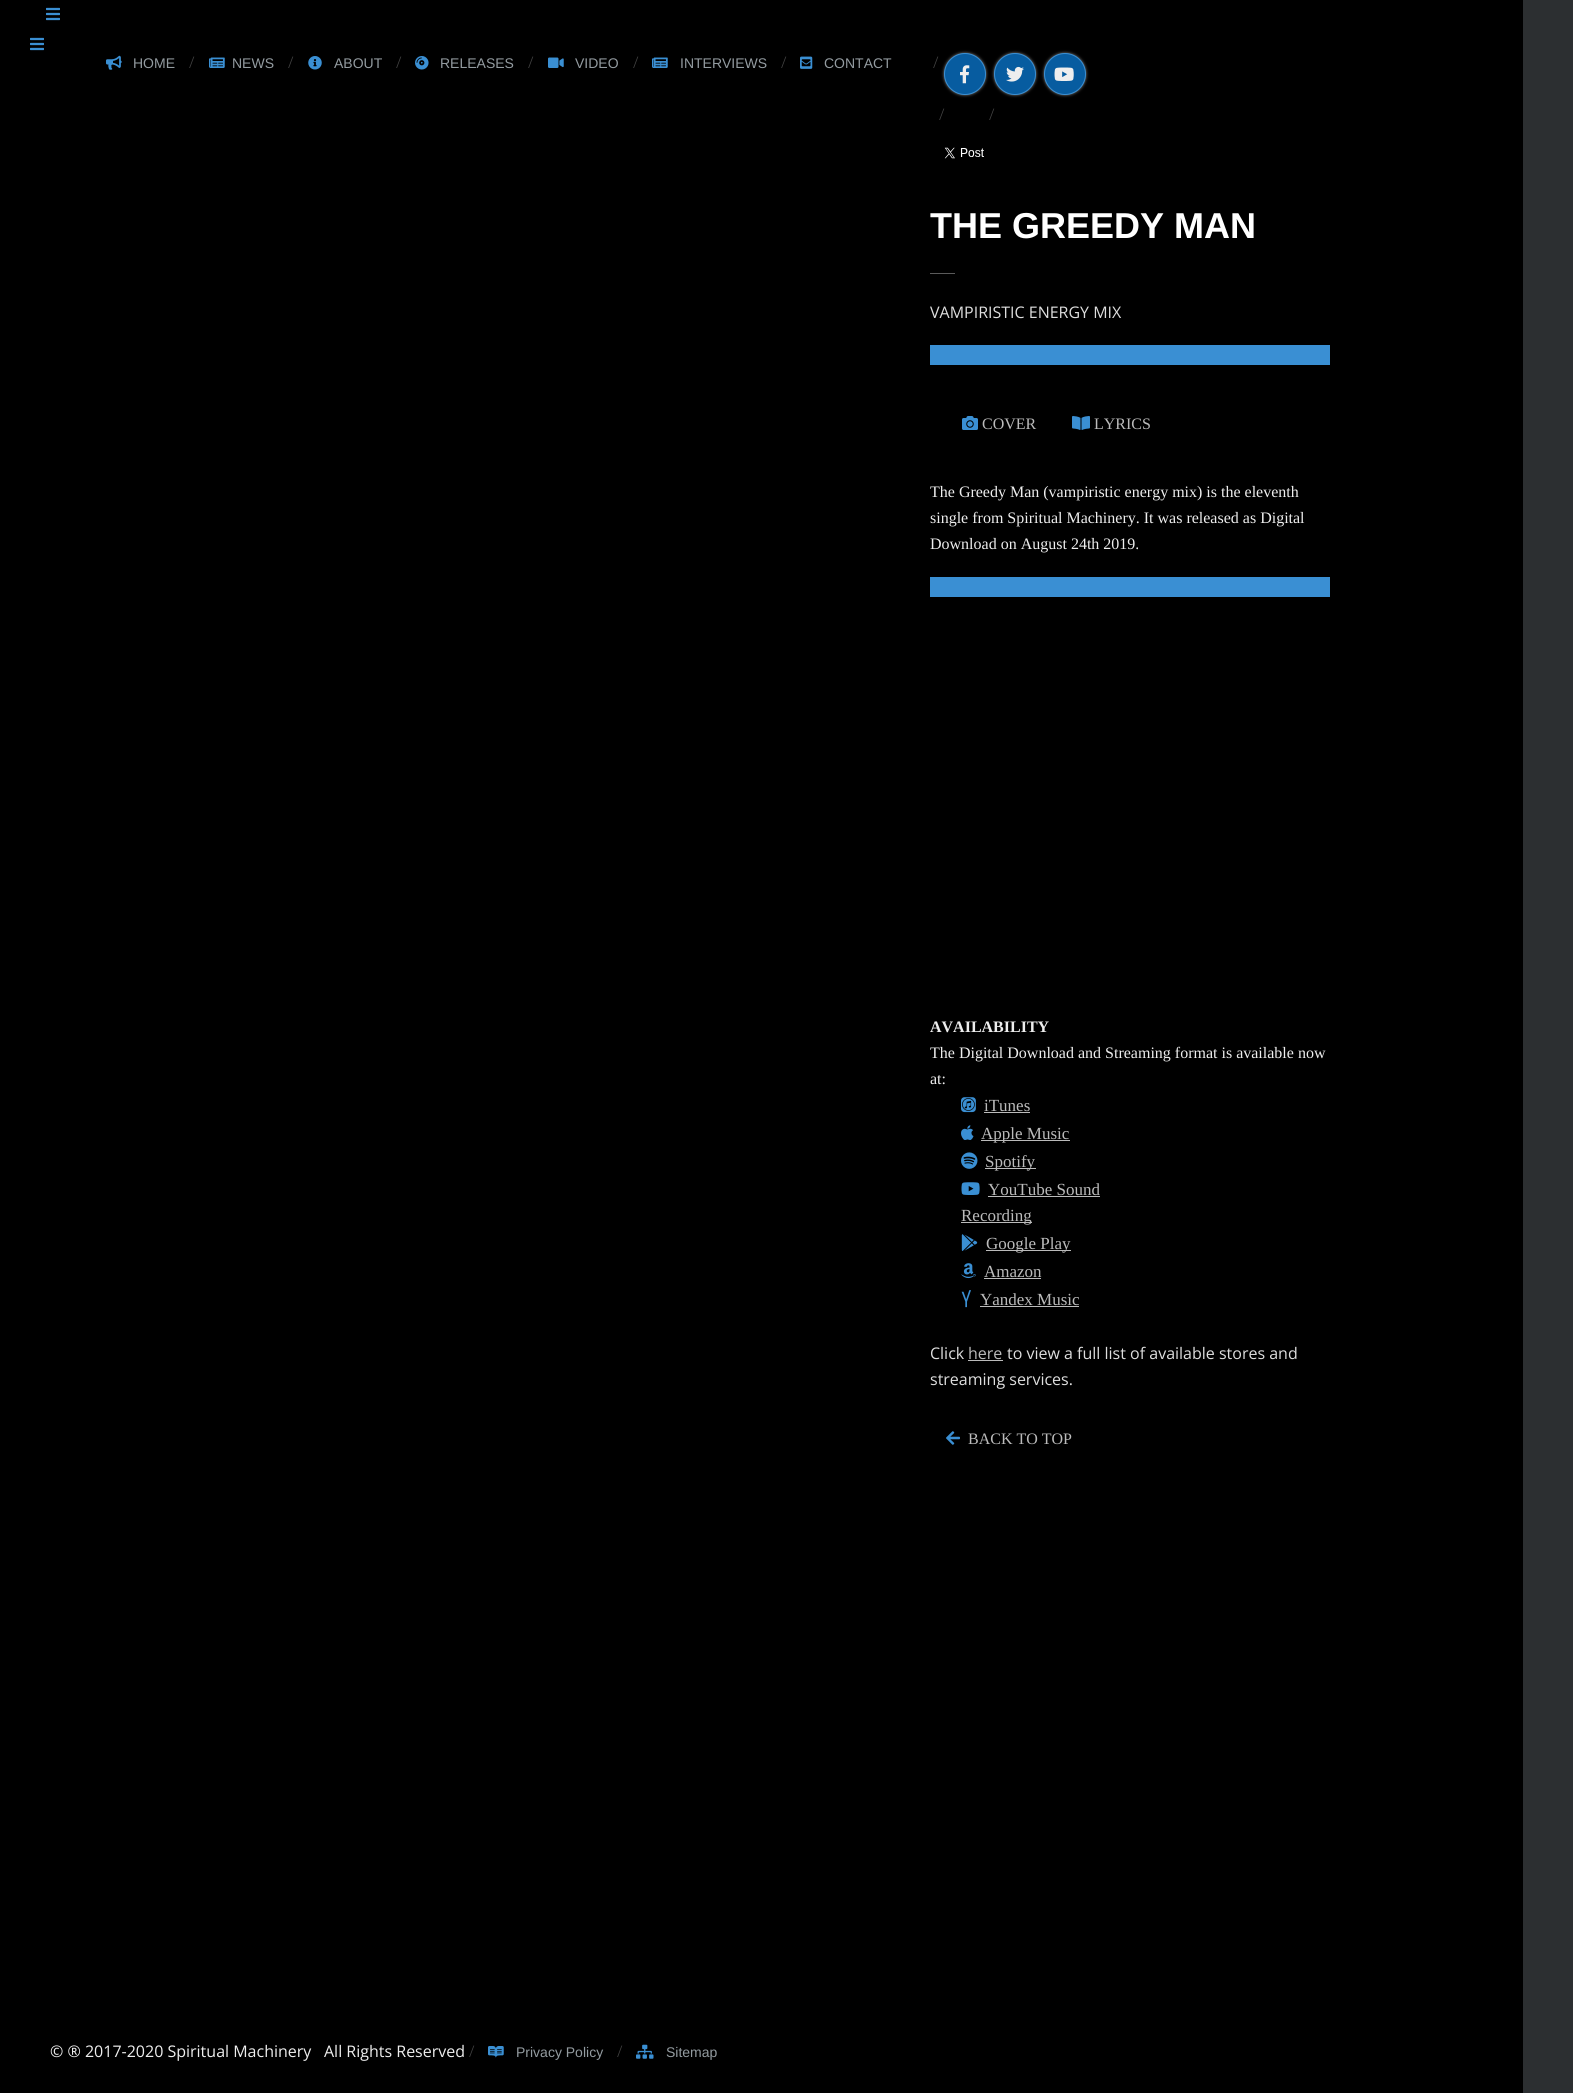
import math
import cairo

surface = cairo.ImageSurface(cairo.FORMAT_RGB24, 1573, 2093)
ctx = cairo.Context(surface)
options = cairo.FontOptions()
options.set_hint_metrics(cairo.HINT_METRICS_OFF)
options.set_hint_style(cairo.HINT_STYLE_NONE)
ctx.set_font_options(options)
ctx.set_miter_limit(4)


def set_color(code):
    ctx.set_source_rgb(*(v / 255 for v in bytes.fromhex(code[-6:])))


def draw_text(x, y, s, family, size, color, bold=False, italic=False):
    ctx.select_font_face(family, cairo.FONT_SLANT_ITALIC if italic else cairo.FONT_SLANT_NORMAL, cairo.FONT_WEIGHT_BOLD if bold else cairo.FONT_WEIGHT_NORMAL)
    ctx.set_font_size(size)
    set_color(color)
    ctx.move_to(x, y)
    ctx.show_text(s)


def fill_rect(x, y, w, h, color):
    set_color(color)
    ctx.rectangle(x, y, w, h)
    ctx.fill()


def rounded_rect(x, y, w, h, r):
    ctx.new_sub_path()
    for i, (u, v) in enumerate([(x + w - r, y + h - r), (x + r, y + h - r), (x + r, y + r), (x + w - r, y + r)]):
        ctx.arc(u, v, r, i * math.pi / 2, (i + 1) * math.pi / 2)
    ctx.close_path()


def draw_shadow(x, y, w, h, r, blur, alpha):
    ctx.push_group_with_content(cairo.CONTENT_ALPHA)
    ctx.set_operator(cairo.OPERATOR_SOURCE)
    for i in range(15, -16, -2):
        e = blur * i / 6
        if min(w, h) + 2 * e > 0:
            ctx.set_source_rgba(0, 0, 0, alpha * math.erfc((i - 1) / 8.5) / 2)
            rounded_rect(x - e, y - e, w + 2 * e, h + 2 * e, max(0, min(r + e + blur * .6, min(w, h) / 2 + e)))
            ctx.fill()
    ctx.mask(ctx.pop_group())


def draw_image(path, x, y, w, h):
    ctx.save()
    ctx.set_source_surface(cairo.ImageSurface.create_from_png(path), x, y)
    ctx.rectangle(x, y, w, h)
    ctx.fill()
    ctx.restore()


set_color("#000000")
ctx.paint()
draw_image("assets/img1.png", 30, 37, 14, 14)
draw_image("assets/img1.png", 46, 7, 14, 14)
fill_rect(1523, 0, 50, 2093, "#2c2f31")
draw_image("assets/img2.png", 106, 55, 16, 15)
draw_text(133, 68, "HOME", "Liberation Sans", 14, "#939ba0")
draw_text(189, 68, "/", "Open Sans Light", 16, "#444444")
draw_image("assets/img3.png", 209, 57, 16, 11)
draw_text(232, 68, "NEWS", "Liberation Sans", 14, "#939ba0")
draw_text(288, 68, "/", "Open Sans Light", 16, "#444444")
draw_image("assets/img4.png", 308, 56, 14, 14)
draw_text(334, 68, "ABOUT", "Liberation Sans", 14, "#939ba0")
draw_text(396, 68, "/", "Open Sans Light", 16, "#444444")
draw_image("assets/img5.png", 415, 56, 14, 14)
draw_text(440, 68, "RELEASES", "Liberation Sans", 14, "#939ba0")
draw_text(528, 68, "/", "Open Sans Light", 16, "#444444")
draw_image("assets/img6.png", 548, 57, 16, 11)
draw_text(575, 68, "VIDEO", "Liberation Sans", 14, "#939ba0")
draw_text(633, 68, "/", "Open Sans Light", 16, "#444444")
draw_image("assets/img3.png", 652, 57, 16, 11)
draw_text(680, 68, "INTERVIEWS", "Liberation Sans", 14, "#939ba0")
draw_text(781, 68, "/", "Open Sans Light", 16, "#444444")
draw_image("assets/img7.png", 800, 56, 13, 13)
draw_text(824, 68, "CONTACT", "Liberation Sans", 14, "#939ba0")
draw_text(933, 68, "/", "Open Sans Light", 16, "#444444")
set_color("#808080")
draw_shadow(1044, 53, 42, 42, 21, 1.5, 1)
set_color("#075ca0")
ctx.arc(1065, 74, 20.5, 0, 2 * math.pi)
ctx.fill_preserve()
set_color("#3a8fd3")
ctx.set_line_width(1)
ctx.stroke()
draw_image("assets/img8.png", 1054, 67, 20, 14)
set_color("#808080")
draw_shadow(944, 53, 42, 42, 21, 1.5, 1)
set_color("#075ca0")
ctx.arc(965, 74, 20.5, 0, 2 * math.pi)
ctx.fill_preserve()
set_color("#3a8fd3")
ctx.stroke()
draw_image("assets/img9.png", 960, 65, 10, 19)
draw_text(939, 120, "/", "Open Sans Light", 16, "#444444")
set_color("#808080")
draw_shadow(994, 53, 42, 42, 21, 1.5, 1)
set_color("#075ca0")
ctx.arc(1015, 74, 20.5, 0, 2 * math.pi)
ctx.fill_preserve()
set_color("#3a8fd3")
ctx.stroke()
draw_image("assets/img10.png", 1006, 66, 18, 16)
draw_text(989, 120, "/", "Open Sans Light", 16, "#444444")
draw_image("assets/img11.png", 944, 147, 40, 12)
draw_text(930, 238, "THE GREEDY MAN", "Liberation Sans", 36, "#ffffff", bold=True)
fill_rect(930, 273, 25, 1, "#5a5a5a")
draw_text(930, 318, "VAMPIRISTIC ENERGY MIX", "Open Sans", 16, "#dedede")
fill_rect(930, 345, 400, 20, "#3a8fd3")
draw_image("assets/img12.png", 962, 416, 16, 14)
draw_text(982, 429, "COVER", "Liberation Serif", 16, "#bbbbbb")
draw_image("assets/img13.png", 1072, 416, 18, 14)
draw_text(1094, 429, "LYRICS", "Liberation Serif", 16, "#bbbbbb")
draw_text(930, 497, "The Greedy Man (vampiristic energy mix) is the eleventh", "Liberation Serif", 16, "#eeeeee")
draw_text(930, 523, "single from Spiritual Machinery. It was released as Digital", "Liberation Serif", 16, "#eeeeee")
draw_text(930, 549, "Download on August 24th 2019.", "Liberation Serif", 16, "#eeeeee")
fill_rect(930, 577, 400, 20, "#3a8fd3")
draw_text(930, 1032, "AVAILABILITY", "Liberation Serif", 16, "#eeeeee", bold=True)
draw_text(930, 1058, "The Digital Download and Streaming format is available now", "Liberation Serif", 16, "#eeeeee")
draw_text(930, 1084, "at:", "Liberation Serif", 16, "#eeeeee")
draw_image("assets/img14.png", 961, 1097, 15, 16)
draw_text(984, 1111, "iTunes", "Liberation Serif", 17, "#bbbbbb")
fill_rect(984, 1112, 46, 1, "#bbbbbb")
draw_image("assets/img15.png", 961, 1125, 13, 15)
fill_rect(981, 1140, 89, 1, "#bbbbbb")
draw_text(981, 1139, "Apple Music", "Liberation Serif", 17, "#bbbbbb")
draw_image("assets/img16.png", 961, 1152, 17, 17)
fill_rect(985, 1168, 51, 1, "#bbbbbb")
draw_text(985, 1167, "Spotify", "Liberation Serif", 17, "#bbbbbb")
draw_image("assets/img17.png", 961, 1182, 19, 13)
draw_text(988, 1195, "YouTube Sound", "Liberation Serif", 17, "#bbbbbb")
fill_rect(988, 1196, 112, 1, "#bbbbbb")
fill_rect(961, 1222, 71, 1, "#bbbbbb")
draw_text(961, 1221, "Recording", "Liberation Serif", 17, "#bbbbbb")
draw_image("assets/img18.png", 961, 1234, 17, 17)
fill_rect(986, 1250, 85, 1, "#bbbbbb")
draw_text(986, 1249, "Google Play", "Liberation Serif", 17, "#bbbbbb")
draw_image("assets/img19.png", 961, 1263, 15, 16)
draw_text(984, 1277, "Amazon", "Liberation Serif", 17, "#bbbbbb")
fill_rect(984, 1278, 57, 1, "#bbbbbb")
draw_image("assets/img20.png", 961, 1290, 10, 18)
draw_text(980, 1305, "Yandex Music", "Liberation Serif", 17, "#bbbbbb")
fill_rect(980, 1306, 99, 1, "#bbbbbb")
draw_text(930, 1359, "Click", "Open Sans", 16, "#dedede")
draw_text(968, 1359, "here", "Open Sans", 16, "#bbbbbb")
fill_rect(968, 1360, 35, 1, "#bbbbbb")
draw_text(1007, 1359, "to view a full list of available stores and", "Open Sans", 16, "#dedede")
draw_text(930, 1385, "streaming services.", "Open Sans", 16, "#dedede")
draw_image("assets/img21.png", 946, 1431, 14, 14)
draw_text(968, 1444, "BACK TO TOP", "Liberation Serif", 16, "#bbbbbb")
draw_text(50, 2057, "© ® 2017-2020 Spiritual Machinery", "Open Sans", 16, "#eeeeee")
draw_text(324, 2057, "All Rights Reserved", "Open Sans", 16, "#eeeeee")
draw_text(469, 2057, "/", "Open Sans Light", 16, "#444444")
draw_image("assets/img22.png", 488, 2046, 16, 12)
draw_text(516, 2057, "Privacy Policy", "Liberation Sans", 14, "#939ba0")
draw_text(617, 2057, "/", "Open Sans Light", 16, "#444444")
draw_image("assets/img23.png", 636, 2044, 18, 15)
draw_text(666, 2057, "Sitemap", "Liberation Sans", 14, "#939ba0")
surface.write_to_png("output.png")
